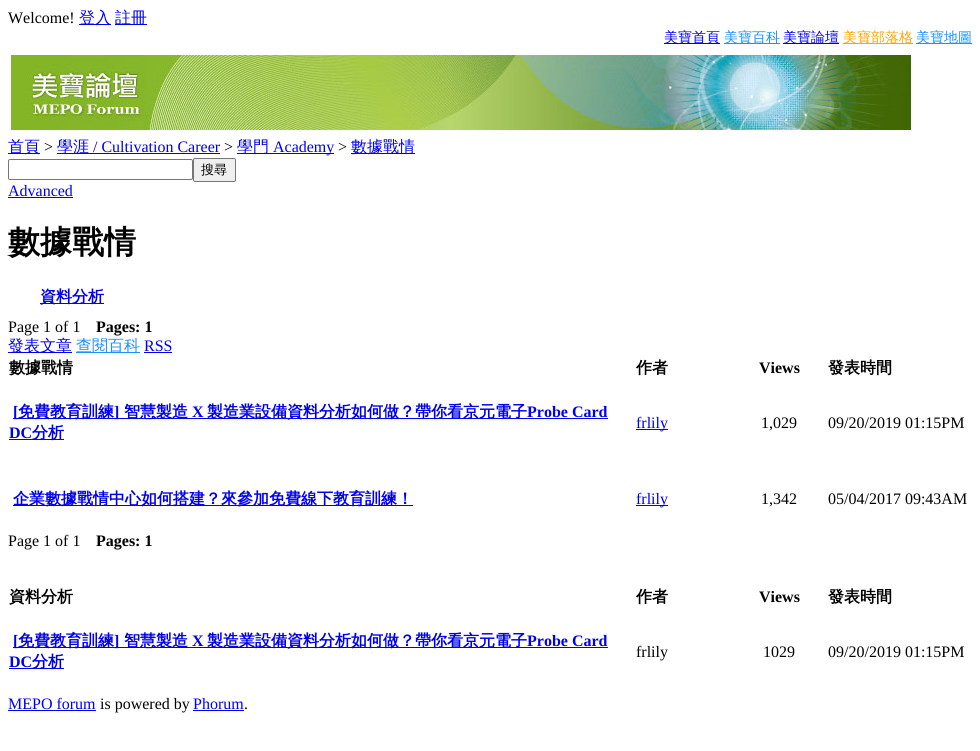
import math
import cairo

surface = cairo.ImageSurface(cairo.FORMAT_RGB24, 980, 751)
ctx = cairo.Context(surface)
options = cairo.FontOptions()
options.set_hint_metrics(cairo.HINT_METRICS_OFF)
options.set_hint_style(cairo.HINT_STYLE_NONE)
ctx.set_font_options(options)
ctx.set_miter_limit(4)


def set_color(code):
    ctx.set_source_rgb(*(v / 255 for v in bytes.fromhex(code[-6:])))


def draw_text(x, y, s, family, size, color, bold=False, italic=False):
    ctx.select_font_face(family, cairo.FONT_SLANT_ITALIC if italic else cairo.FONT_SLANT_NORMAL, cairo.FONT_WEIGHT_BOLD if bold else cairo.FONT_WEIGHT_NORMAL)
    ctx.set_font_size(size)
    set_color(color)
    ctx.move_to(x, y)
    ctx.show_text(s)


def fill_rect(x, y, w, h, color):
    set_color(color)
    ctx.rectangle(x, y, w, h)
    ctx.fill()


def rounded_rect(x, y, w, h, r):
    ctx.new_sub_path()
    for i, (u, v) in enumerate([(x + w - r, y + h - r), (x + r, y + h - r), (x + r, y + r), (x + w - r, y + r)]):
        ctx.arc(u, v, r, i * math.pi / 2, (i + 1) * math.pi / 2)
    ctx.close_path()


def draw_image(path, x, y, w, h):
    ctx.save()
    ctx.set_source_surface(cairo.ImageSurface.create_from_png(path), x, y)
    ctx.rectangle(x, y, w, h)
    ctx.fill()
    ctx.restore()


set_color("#ffffff")
ctx.paint()
draw_text(8, 23, "Welcome!", "Liberation Serif", 16, "#000000")
fill_rect(79, 24, 32, 1, "#0000ee")
draw_text(79, 23, "登入", "WenQuanYi Zen Hei Medium", 16, "#0000ee")
fill_rect(115, 24, 32, 1, "#0000ee")
draw_text(115, 23, "註冊", "WenQuanYi Zen Hei Medium", 16, "#0000ee")
fill_rect(664, 43, 56, 1, "#0000ee")
draw_text(664, 42, "美寶首頁", "WenQuanYi Zen Hei Medium", 14, "#0000ee")
fill_rect(724, 43, 56, 1, "#1e90ff")
draw_text(724, 42, "美寶百科", "WenQuanYi Zen Hei Medium", 14, "#1e90ff")
fill_rect(783, 43, 56, 1, "#0000ee")
draw_text(783, 42, "美寶論壇", "WenQuanYi Zen Hei Medium", 14, "#0000ee")
fill_rect(843, 43, 70, 1, "#ffa500")
draw_text(843, 42, "美寶部落格", "WenQuanYi Zen Hei Medium", 14, "#ffa500")
fill_rect(916, 43, 56, 1, "#1e90ff")
draw_text(916, 42, "美寶地圖", "WenQuanYi Zen Hei Medium", 14, "#1e90ff")
draw_image("assets/img1.png", 11, 55, 900, 75)
fill_rect(8, 153, 32, 1, "#0000ee")
draw_text(8, 152, "首頁", "WenQuanYi Zen Hei Medium", 16, "#0000ee")
draw_text(44, 152, ">", "Liberation Serif", 16, "#000000")
fill_rect(57, 153, 163, 1, "#0000ee")
draw_text(57, 152, "學涯", "WenQuanYi Zen Hei Medium", 16, "#0000ee")
draw_text(93, 152, "/ Cultivation Career", "Liberation Serif", 16, "#0000ee")
draw_text(224, 152, ">", "Liberation Serif", 16, "#000000")
fill_rect(237, 153, 97, 1, "#0000ee")
draw_text(237, 152, "學門", "WenQuanYi Zen Hei Medium", 16, "#0000ee")
draw_text(273, 152, "Academy", "Liberation Serif", 16, "#0000ee")
draw_text(338, 152, ">", "Liberation Serif", 16, "#000000")
fill_rect(351, 153, 64, 1, "#0000ee")
draw_text(351, 152, "數據戰情", "WenQuanYi Zen Hei Medium", 16, "#0000ee")
rounded_rect(8.5, 159.5, 184, 20, 1.5)
set_color("#767676")
ctx.set_line_width(1)
ctx.stroke()
set_color("#efefef")
rounded_rect(193.5, 158.5, 42, 23, 1.5)
ctx.fill_preserve()
set_color("#767676")
ctx.stroke()
draw_text(201, 174, "搜尋", "WenQuanYi Zen Hei Medium", 13, "#000000")
draw_text(8, 196, "Advanced", "Liberation Serif", 16, "#0000ee")
fill_rect(8, 197, 65, 1, "#0000ee")
draw_text(8, 253, "數據戰情", "WenQuanYi Zen Hei", 32, "#000000", bold=True)
fill_rect(40, 303, 64, 1, "#0000ee")
draw_text(40, 302, "資料分析", "WenQuanYi Zen Hei", 16, "#0000ee", bold=True)
draw_text(8, 332, "Page 1 of 1", "Liberation Serif", 16, "#000000")
draw_text(96, 332, "Pages: 1", "Liberation Serif", 16, "#000000", bold=True)
fill_rect(8, 352, 64, 1, "#0000ee")
draw_text(8, 351, "發表文章", "WenQuanYi Zen Hei Medium", 16, "#0000ee")
fill_rect(76, 352, 64, 1, "#1e90ff")
draw_text(76, 351, "查閱百科", "WenQuanYi Zen Hei Medium", 16, "#1e90ff")
draw_text(144, 351, "RSS", "Liberation Serif", 16, "#0000ee")
fill_rect(144, 352, 28, 1, "#0000ee")
draw_text(9, 373, "數據戰情", "WenQuanYi Zen Hei", 16, "#000000", bold=True)
draw_text(636, 373, "作者", "WenQuanYi Zen Hei", 16, "#000000", bold=True)
draw_text(759, 373, "Views", "Liberation Serif", 16, "#000000", bold=True)
draw_text(828, 373, "發表時間", "WenQuanYi Zen Hei", 16, "#000000", bold=True)
fill_rect(13, 418, 595, 1, "#0000ee")
draw_text(13, 417, "[", "Liberation Serif", 16, "#0000ee", bold=True)
draw_text(18, 417, "免費教育訓練", "WenQuanYi Zen Hei", 16, "#0000ee", bold=True)
draw_text(114, 417, "]", "Liberation Serif", 16, "#0000ee", bold=True)
draw_text(124, 417, "智慧製造", "WenQuanYi Zen Hei", 16, "#0000ee", bold=True)
draw_text(192, 417, "X", "Liberation Serif", 16, "#0000ee", bold=True)
draw_text(207, 417, "製造業設備資料分析如何做？帶你看京元電子", "WenQuanYi Zen Hei", 16, "#0000ee", bold=True)
draw_text(527, 417, "Probe Card", "Liberation Serif", 16, "#0000ee", bold=True)
draw_text(9, 438, "DC", "Liberation Serif", 16, "#0000ee", bold=True)
fill_rect(9, 439, 55, 1, "#0000ee")
draw_text(32, 438, "分析", "WenQuanYi Zen Hei", 16, "#0000ee", bold=True)
fill_rect(636, 429, 32, 1, "#0000ee")
draw_text(636, 428, "frlily", "Liberation Serif", 16, "#0000ee")
draw_text(761, 428, "1,029", "Liberation Serif", 16, "#000000")
draw_text(828, 428, "09/20/2019 01:15PM", "Liberation Serif", 16, "#000000")
fill_rect(13, 505, 400, 1, "#0000ee")
draw_text(13, 504, "企業數據戰情中心如何搭建？來參加免費線下教育訓練！", "WenQuanYi Zen Hei", 16, "#0000ee", bold=True)
fill_rect(636, 505, 32, 1, "#0000ee")
draw_text(636, 504, "frlily", "Liberation Serif", 16, "#0000ee")
draw_text(761, 504, "1,342", "Liberation Serif", 16, "#000000")
draw_text(828, 504, "05/04/2017 09:43AM", "Liberation Serif", 16, "#000000")
draw_text(8, 546, "Page 1 of 1", "Liberation Serif", 16, "#000000")
draw_text(96, 546, "Pages: 1", "Liberation Serif", 16, "#000000", bold=True)
draw_text(9, 602, "資料分析", "WenQuanYi Zen Hei", 16, "#000000", bold=True)
draw_text(636, 602, "作者", "WenQuanYi Zen Hei", 16, "#000000", bold=True)
draw_text(759, 602, "Views", "Liberation Serif", 16, "#000000", bold=True)
draw_text(828, 602, "發表時間", "WenQuanYi Zen Hei", 16, "#000000", bold=True)
fill_rect(13, 647, 595, 1, "#0000ee")
draw_text(13, 646, "[", "Liberation Serif", 16, "#0000ee", bold=True)
draw_text(18, 646, "免費教育訓練", "WenQuanYi Zen Hei", 16, "#0000ee", bold=True)
draw_text(114, 646, "]", "Liberation Serif", 16, "#0000ee", bold=True)
draw_text(124, 646, "智慧製造", "WenQuanYi Zen Hei", 16, "#0000ee", bold=True)
draw_text(192, 646, "X", "Liberation Serif", 16, "#0000ee", bold=True)
draw_text(207, 646, "製造業設備資料分析如何做？帶你看京元電子", "WenQuanYi Zen Hei", 16, "#0000ee", bold=True)
draw_text(527, 646, "Probe Card", "Liberation Serif", 16, "#0000ee", bold=True)
draw_text(9, 667, "DC", "Liberation Serif", 16, "#0000ee", bold=True)
fill_rect(9, 668, 55, 1, "#0000ee")
draw_text(32, 667, "分析", "WenQuanYi Zen Hei", 16, "#0000ee", bold=True)
draw_text(636, 657, "frlily", "Liberation Serif", 16, "#000000")
draw_text(763, 657, "1029", "Liberation Serif", 16, "#000000")
draw_text(828, 657, "09/20/2019 01:15PM", "Liberation Serif", 16, "#000000")
draw_text(8, 709, "MEPO forum", "Liberation Serif", 16, "#0000ee")
fill_rect(8, 710, 88, 1, "#0000ee")
draw_text(100, 709, "is powered by", "Liberation Serif", 16, "#000000")
draw_text(193, 709, "Phorum", "Liberation Serif", 16, "#0000ee")
fill_rect(193, 710, 51, 1, "#0000ee")
draw_text(244, 709, ".", "Liberation Serif", 16, "#000000")
surface.write_to_png("output.png")
